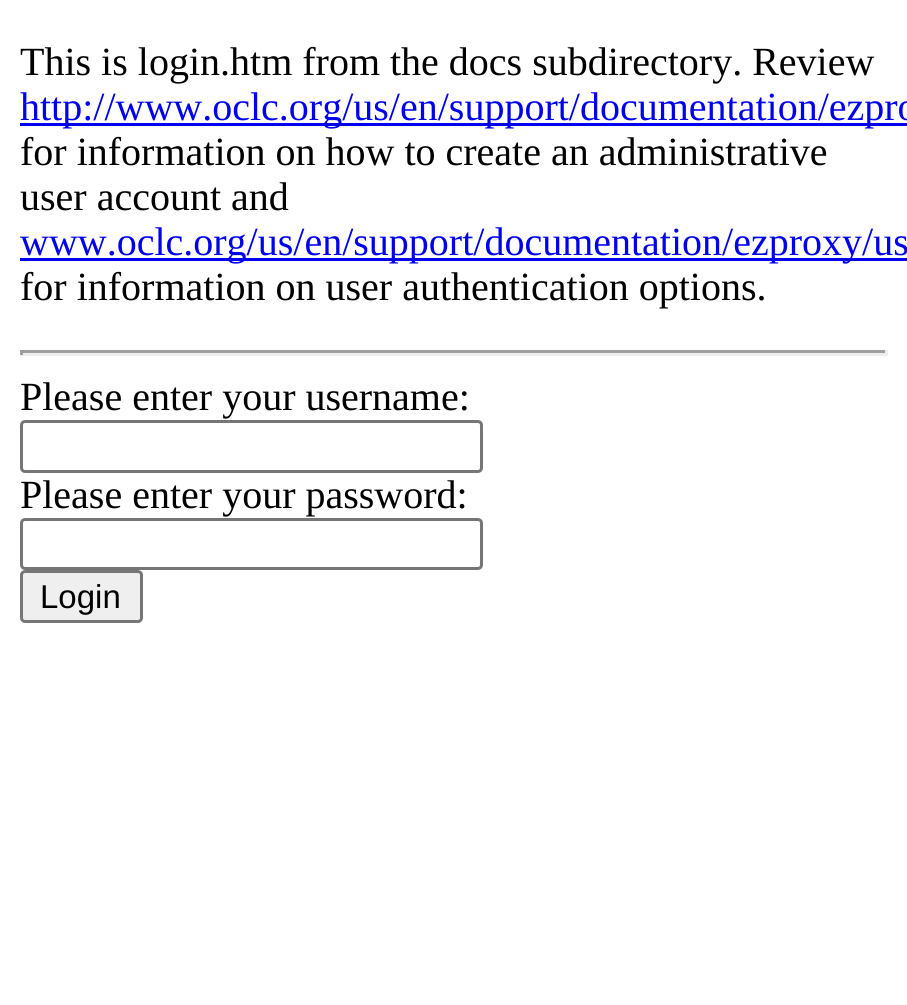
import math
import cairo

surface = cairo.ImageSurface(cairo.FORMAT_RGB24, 907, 1005)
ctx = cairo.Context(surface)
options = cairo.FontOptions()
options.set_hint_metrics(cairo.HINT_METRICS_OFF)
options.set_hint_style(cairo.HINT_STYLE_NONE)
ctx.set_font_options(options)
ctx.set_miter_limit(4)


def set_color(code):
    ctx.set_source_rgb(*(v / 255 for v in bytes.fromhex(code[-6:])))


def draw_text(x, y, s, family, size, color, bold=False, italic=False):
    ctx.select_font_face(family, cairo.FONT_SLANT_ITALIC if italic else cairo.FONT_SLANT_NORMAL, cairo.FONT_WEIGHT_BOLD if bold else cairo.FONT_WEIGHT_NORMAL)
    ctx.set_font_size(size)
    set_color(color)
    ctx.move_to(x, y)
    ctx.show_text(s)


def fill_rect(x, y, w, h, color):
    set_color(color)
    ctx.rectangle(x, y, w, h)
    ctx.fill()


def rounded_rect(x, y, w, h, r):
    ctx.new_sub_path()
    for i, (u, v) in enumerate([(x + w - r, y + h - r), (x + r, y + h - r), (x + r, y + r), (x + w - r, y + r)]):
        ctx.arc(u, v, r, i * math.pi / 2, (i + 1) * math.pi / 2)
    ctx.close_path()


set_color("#ffffff")
ctx.paint()
draw_text(20, 75, "This is login.htm from the docs subdirectory. Review", "Liberation Serif", 40, "#000000")
fill_rect(20, 123, 887, 3, "#0000ee")
draw_text(20, 120, "http://www.oclc.org/us/en/support/documentation/ezpro", "Liberation Serif", 40, "#0000ee")
draw_text(20, 165, "for information on how to create an administrative", "Liberation Serif", 40, "#000000")
draw_text(20, 210, "user account and", "Liberation Serif", 40, "#000000")
fill_rect(20, 258, 887, 3, "#0000ee")
draw_text(20, 255, "www.oclc.org/us/en/support/documentation/ezproxy/us", "Liberation Serif", 40, "#0000ee")
draw_text(20, 300, "for information on user authentication options.", "Liberation Serif", 40, "#000000")
fill_rect(20, 350, 868, 3, "#9f9f9f")
fill_rect(885, 350, 3, 5, "#eeeeee")
fill_rect(20, 353, 868, 3, "#eeeeee")
fill_rect(20, 350, 3, 5, "#9f9f9f")
draw_text(20, 410, "Please enter your username:", "Liberation Serif", 40, "#000000")
rounded_rect(21.5, 421.5, 460, 50, 3.5)
set_color("#767676")
ctx.set_line_width(3)
ctx.stroke()
draw_text(20, 508, "Please enter your password:", "Liberation Serif", 40, "#000000")
rounded_rect(21.5, 519.5, 460, 49, 3.5)
set_color("#767676")
ctx.stroke()
set_color("#efefef")
rounded_rect(21.5, 571.5, 120, 50, 3.5)
ctx.fill_preserve()
set_color("#767676")
ctx.stroke()
draw_text(40, 608, "Login", "Liberation Sans", 33, "#000000")
surface.write_to_png("output.png")
